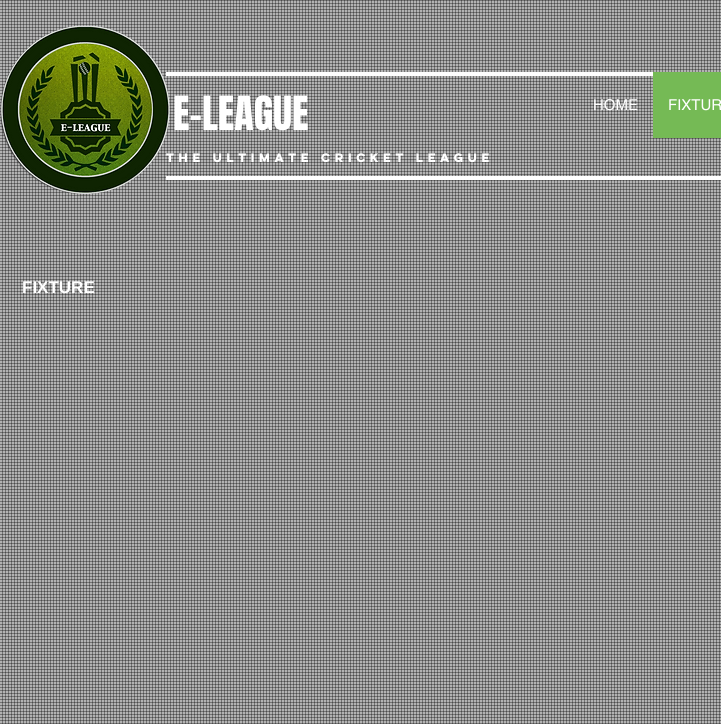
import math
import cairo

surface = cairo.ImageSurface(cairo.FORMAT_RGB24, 721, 724)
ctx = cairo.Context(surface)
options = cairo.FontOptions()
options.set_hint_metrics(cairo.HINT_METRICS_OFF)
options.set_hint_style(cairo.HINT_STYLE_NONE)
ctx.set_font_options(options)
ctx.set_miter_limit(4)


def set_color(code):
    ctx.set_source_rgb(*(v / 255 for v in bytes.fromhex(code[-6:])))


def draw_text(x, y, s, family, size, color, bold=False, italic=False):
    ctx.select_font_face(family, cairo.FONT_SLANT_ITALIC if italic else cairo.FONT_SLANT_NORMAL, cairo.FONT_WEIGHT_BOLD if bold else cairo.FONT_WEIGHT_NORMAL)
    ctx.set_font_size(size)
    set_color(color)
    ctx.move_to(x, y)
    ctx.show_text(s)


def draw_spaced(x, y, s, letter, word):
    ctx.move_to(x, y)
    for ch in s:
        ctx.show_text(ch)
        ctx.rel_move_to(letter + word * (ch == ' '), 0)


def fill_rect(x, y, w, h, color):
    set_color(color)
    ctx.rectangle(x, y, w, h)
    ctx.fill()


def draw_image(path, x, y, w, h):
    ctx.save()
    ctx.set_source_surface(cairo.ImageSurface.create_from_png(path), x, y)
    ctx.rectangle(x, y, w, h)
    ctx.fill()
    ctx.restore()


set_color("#b3b3b3")
ctx.paint()
draw_image("assets/img1.png", 0, 0, 721, 724)
fill_rect(166, 72, 487, 4, "#ffffff")
ctx.select_font_face("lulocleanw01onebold", cairo.FONT_SLANT_NORMAL, cairo.FONT_WEIGHT_BOLD)
ctx.set_font_size(11)
draw_spaced(166, 162, "The Ultimate Cricket League", 2.2, 0)
fill_rect(166, 176, 555, 4, "#ffffff")
draw_image("assets/img2.png", 0, 25, 170, 170)
draw_text(173, 130, "E-LEAGUE", "Anton", 40, "#ffffff")
draw_text(593, 110, "HOME", "helvetica", 15, "#ffffff")
fill_rect(653, 72, 68, 66, "#75ba55")
draw_text(668, 110, "FIXTUR", "helvetica", 15, "#ffffff")
draw_text(22, 293, "FIXTURE", "Liberation Sans", 17, "#ffffff", bold=True)
surface.write_to_png("output.png")
